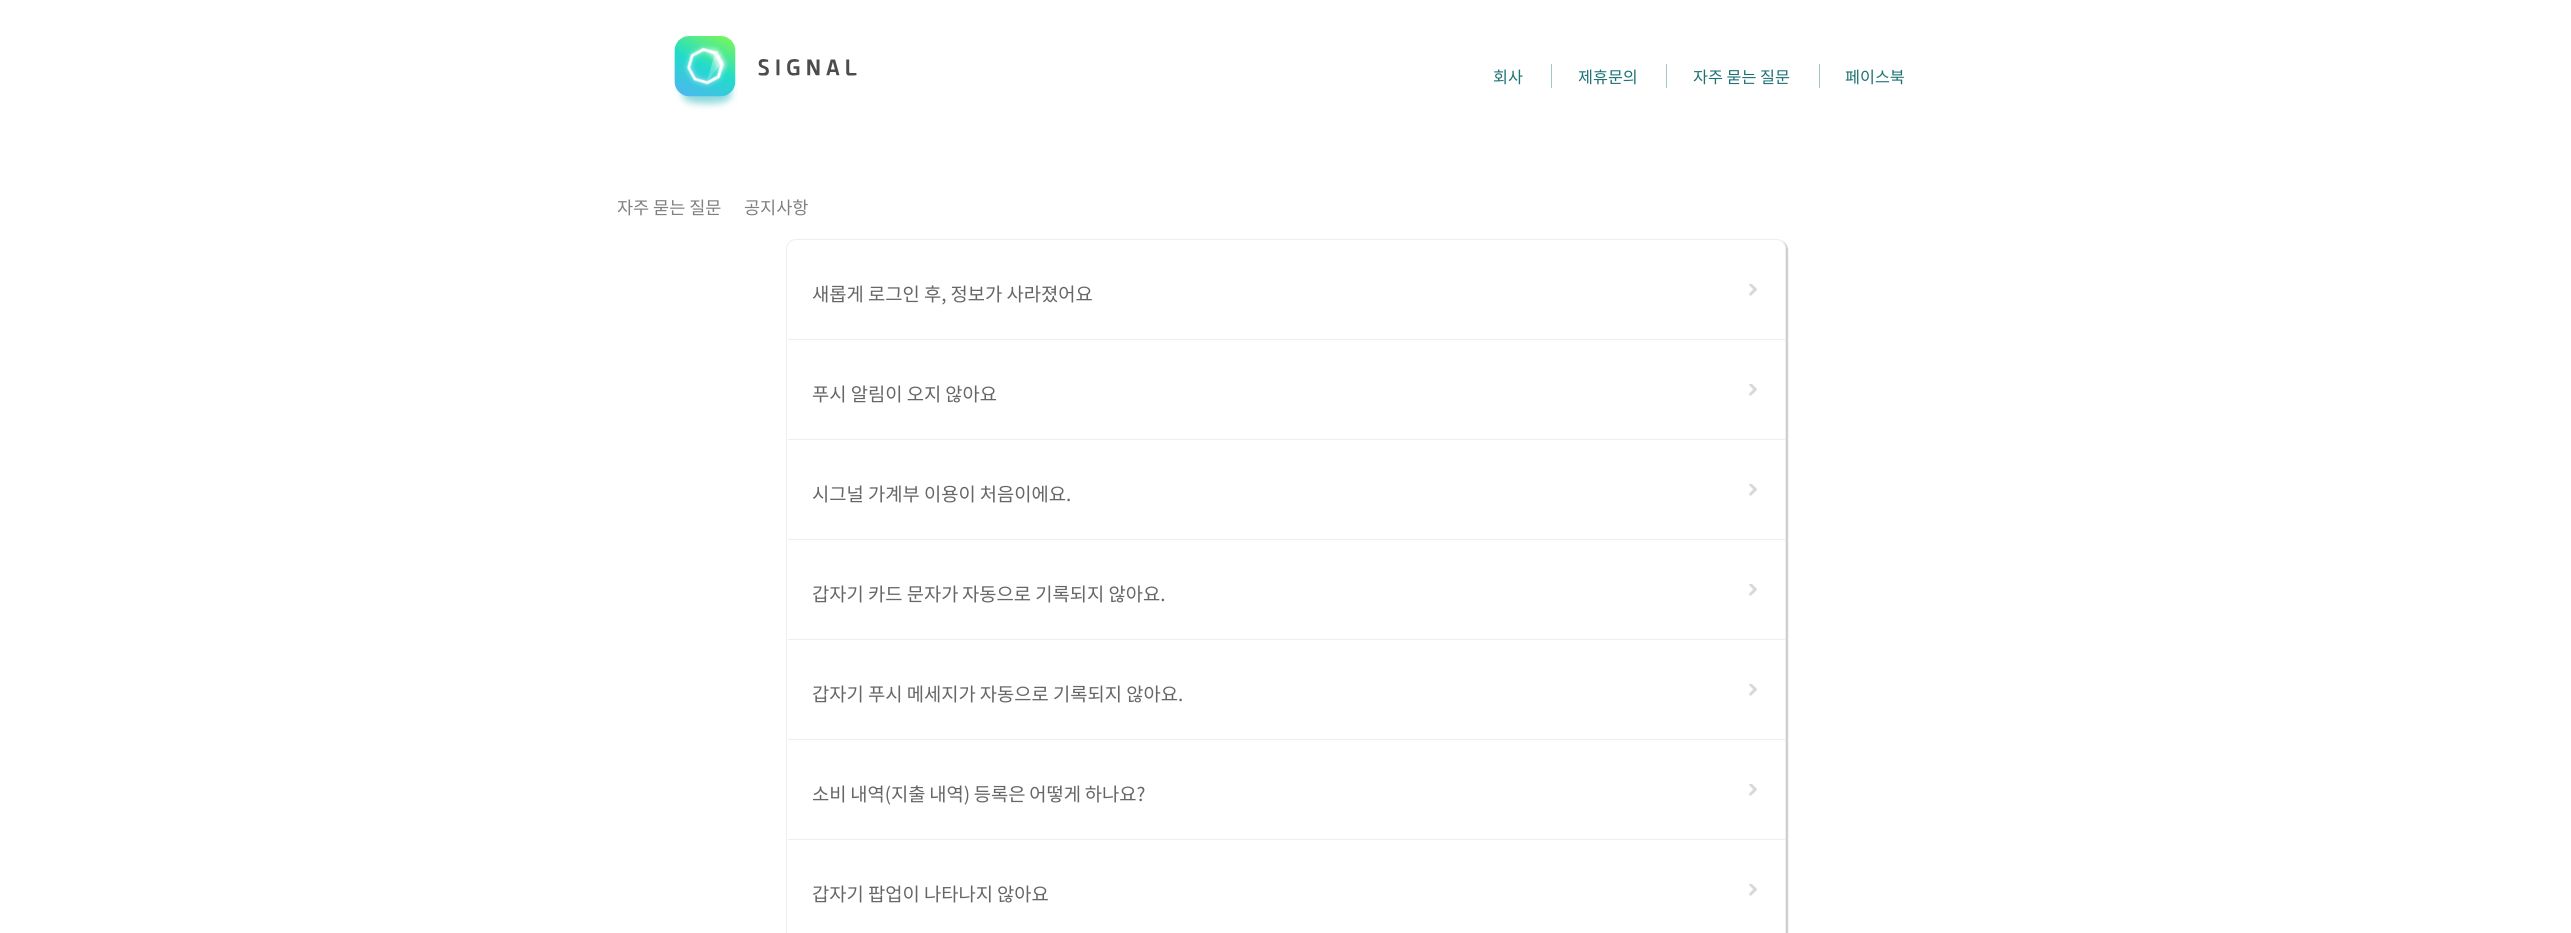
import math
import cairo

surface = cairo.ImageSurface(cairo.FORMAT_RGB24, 2571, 933)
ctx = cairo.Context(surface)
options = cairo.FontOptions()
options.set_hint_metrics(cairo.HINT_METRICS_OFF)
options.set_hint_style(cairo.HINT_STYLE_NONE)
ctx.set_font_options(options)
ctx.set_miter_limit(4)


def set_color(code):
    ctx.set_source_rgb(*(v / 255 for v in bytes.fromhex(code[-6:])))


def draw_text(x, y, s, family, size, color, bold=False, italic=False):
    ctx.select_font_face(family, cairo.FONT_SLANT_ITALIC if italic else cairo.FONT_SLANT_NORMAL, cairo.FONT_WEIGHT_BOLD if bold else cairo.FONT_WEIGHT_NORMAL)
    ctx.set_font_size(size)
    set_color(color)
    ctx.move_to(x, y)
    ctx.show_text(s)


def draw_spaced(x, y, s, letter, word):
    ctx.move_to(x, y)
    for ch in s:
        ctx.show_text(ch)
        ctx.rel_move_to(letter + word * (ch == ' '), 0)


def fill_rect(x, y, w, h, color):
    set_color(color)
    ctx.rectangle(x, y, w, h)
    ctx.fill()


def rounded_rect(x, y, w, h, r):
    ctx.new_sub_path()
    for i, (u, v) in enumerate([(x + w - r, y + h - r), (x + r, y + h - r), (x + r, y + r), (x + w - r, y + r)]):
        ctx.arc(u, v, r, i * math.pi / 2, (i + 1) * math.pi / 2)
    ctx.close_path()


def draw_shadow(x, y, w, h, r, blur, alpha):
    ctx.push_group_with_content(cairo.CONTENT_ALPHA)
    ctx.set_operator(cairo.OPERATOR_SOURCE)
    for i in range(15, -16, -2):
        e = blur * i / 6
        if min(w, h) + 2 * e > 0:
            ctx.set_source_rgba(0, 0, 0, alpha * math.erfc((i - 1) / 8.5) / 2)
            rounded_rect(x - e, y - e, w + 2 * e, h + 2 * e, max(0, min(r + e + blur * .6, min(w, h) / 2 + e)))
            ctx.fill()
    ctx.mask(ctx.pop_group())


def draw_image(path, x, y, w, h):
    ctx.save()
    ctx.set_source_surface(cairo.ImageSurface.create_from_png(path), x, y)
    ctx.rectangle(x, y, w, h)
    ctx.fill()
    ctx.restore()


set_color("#ffffff")
ctx.paint()
draw_image("assets/img1.png", 674, 36, 183, 74)
draw_text(1493, 83, "회사", "Noto Sans KR", 16.25, "#1d7274")
draw_text(1578, 83, "제휴문의", "Noto Sans KR", 16.25, "#1d7274")
fill_rect(1551, 64, 1, 24, "#a5c7c7")
draw_text(1693, 83, "자주 묻는 질문", "Noto Sans KR", 16.25, "#1d7274")
fill_rect(1666, 64, 1, 24, "#a5c7c7")
draw_text(1845, 83, "페이스북", "Noto Sans KR", 16.25, "#1d7274")
fill_rect(1819, 64, 1, 24, "#a5c7c7")
draw_text(617, 214, "자주 묻는 질문", "Noto Sans KR", 17.5, "#808080")
draw_text(744, 214, "공지사항", "Noto Sans KR", 17.5, "#808080")
ctx.save()
ctx.set_fill_rule(cairo.FILL_RULE_EVEN_ODD)
ctx.new_path()
ctx.move_to(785, 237)
ctx.line_to(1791, 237)
ctx.line_to(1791, 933)
ctx.line_to(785, 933)
ctx.close_path()
ctx.move_to(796, 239)
ctx.line_to(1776, 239)
ctx.curve_to(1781.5, 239, 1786, 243.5, 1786, 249)
ctx.line_to(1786, 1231)
ctx.curve_to(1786, 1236.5, 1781.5, 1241, 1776, 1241)
ctx.line_to(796, 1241)
ctx.curve_to(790.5, 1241, 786, 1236.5, 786, 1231)
ctx.line_to(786, 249)
ctx.curve_to(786, 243.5, 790.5, 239, 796, 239)
ctx.close_path()
ctx.clip()
set_color("#000000")
draw_shadow(788, 240, 1000, 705, 10, 0.5, 0.2)
ctx.restore()
rounded_rect(786.5, 239.5, 999, 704, 9.5)
set_color("#eeeeee")
ctx.set_line_width(1)
ctx.stroke()
fill_rect(788, 339, 997, 1, "#eeeeee")
draw_text(812, 301, "새롭게 로그인 후, 정보가 사라졌어요", "Noto Sans KR", 18.75, "#666666")
draw_image("assets/img2.png", 1749, 284, 8, 12)
fill_rect(788, 439, 997, 1, "#eeeeee")
draw_text(812, 401, "푸시 알림이 오지 않아요", "Noto Sans KR", 18.75, "#666666")
draw_image("assets/img2.png", 1749, 384, 8, 12)
fill_rect(788, 539, 997, 1, "#eeeeee")
draw_text(812, 501, "시그널 가계부 이용이 처음이에요.", "Noto Sans KR", 18.75, "#666666")
draw_image("assets/img2.png", 1749, 484, 8, 12)
fill_rect(788, 639, 997, 1, "#eeeeee")
draw_text(812, 601, "갑자기 카드 문자가", "Noto Sans KR", 18.75, "#666666")
draw_text(962, 601, "자동으로 기록되지 않아요.", "Noto Sans KR", 18.75, "#666666")
draw_image("assets/img2.png", 1749, 584, 8, 12)
fill_rect(788, 739, 997, 1, "#eeeeee")
draw_text(812, 701, "갑자기 푸시 메세지가 자동으로 기록되지 않아요.", "Noto Sans KR", 18.75, "#666666")
draw_image("assets/img2.png", 1749, 684, 8, 12)
fill_rect(788, 839, 997, 1, "#eeeeee")
set_color("#666666")
draw_spaced(812, 801, "소비 내역(지출 내역) 등록은 어떻게 하나요?", 0, -0.5)
draw_image("assets/img2.png", 1749, 784, 8, 12)
draw_text(812, 901, "갑자기 팝업이 나타나지 않아요", "Noto Sans KR", 18.75, "#666666")
draw_image("assets/img2.png", 1749, 884, 8, 12)
surface.write_to_png("output.png")
